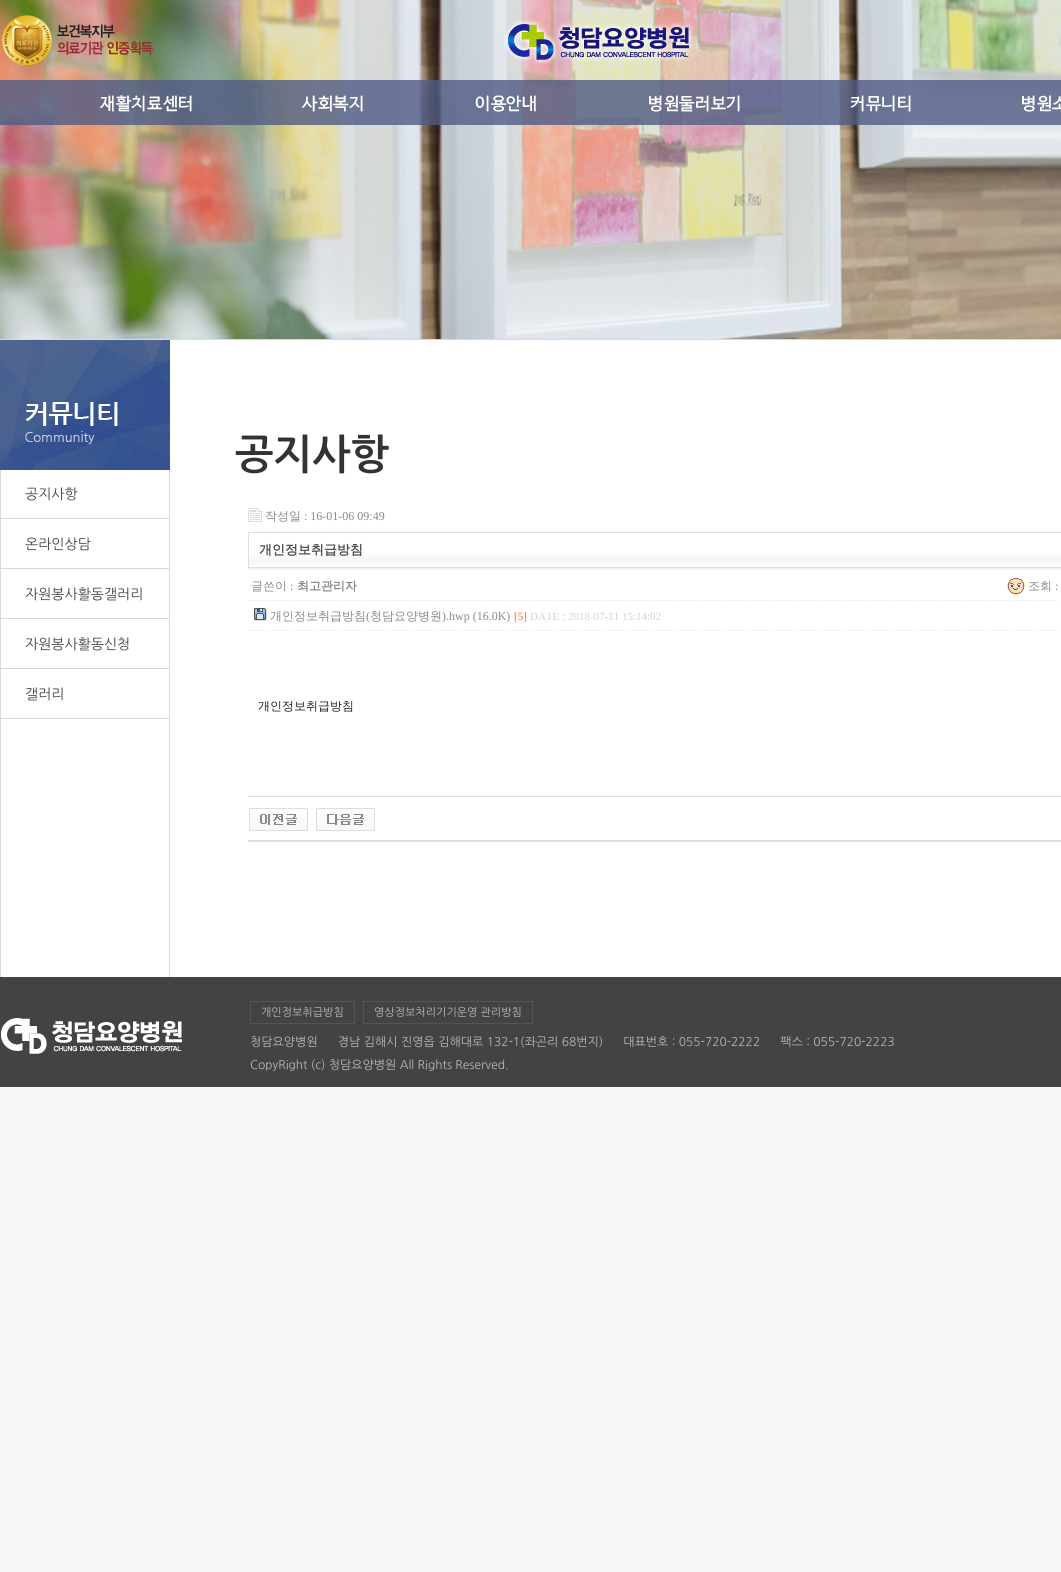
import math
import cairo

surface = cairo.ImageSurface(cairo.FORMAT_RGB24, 1061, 1572)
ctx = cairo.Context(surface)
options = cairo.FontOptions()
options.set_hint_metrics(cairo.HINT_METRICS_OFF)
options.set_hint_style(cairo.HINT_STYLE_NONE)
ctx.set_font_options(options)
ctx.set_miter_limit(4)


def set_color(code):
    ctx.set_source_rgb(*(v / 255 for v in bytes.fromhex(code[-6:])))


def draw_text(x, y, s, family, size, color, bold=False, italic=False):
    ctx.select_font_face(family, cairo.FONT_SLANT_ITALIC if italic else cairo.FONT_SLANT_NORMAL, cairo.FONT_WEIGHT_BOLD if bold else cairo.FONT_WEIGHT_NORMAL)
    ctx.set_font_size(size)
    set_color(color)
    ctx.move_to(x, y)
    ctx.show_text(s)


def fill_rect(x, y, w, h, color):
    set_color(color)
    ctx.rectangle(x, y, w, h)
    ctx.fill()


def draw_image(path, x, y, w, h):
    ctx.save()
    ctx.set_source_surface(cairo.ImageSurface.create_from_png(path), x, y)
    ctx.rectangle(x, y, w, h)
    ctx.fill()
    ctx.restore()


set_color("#f7f7f7")
ctx.paint()
draw_image("assets/img1.png", 0, 0, 1061, 339)
fill_rect(0, 339, 1061, 1, "#d9d9d9")
draw_image("assets/img2.png", 2, 15, 151, 50)
draw_image("assets/img3.png", 504, 20, 190, 44)
ctx.set_source_rgba(0.314, 0.361, 0.518, 0.8)
ctx.rectangle(0, 80, 1061, 45)
ctx.fill()
draw_image("assets/img4.png", 100, 95, 92, 17)
draw_image("assets/img5.png", 302, 95, 61, 17)
draw_image("assets/img6.png", 475, 95, 61, 17)
draw_image("assets/img7.png", 649, 95, 91, 17)
draw_image("assets/img8.png", 850, 95, 61, 17)
draw_image("assets/img9.png", 1022, 95, 39, 17)
fill_rect(1, 340, 1060, 637, "#ffffff")
fill_rect(0, 470, 1, 507, "#d9d9d9")
draw_image("assets/img10.png", 0, 340, 170, 130)
draw_image("assets/img11.png", 25, 402, 93, 42)
fill_rect(1, 518, 168, 1, "#d9d9d9")
draw_text(25, 499, "공지사항", "NanumGothic", 14, "#444444")
fill_rect(1, 568, 168, 1, "#d9d9d9")
draw_text(25, 549, "온라인상담", "NanumGothic", 14, "#444444")
fill_rect(1, 618, 168, 1, "#d9d9d9")
draw_text(25, 599, "자원봉사활동갤러리", "NanumGothic", 14, "#444444")
fill_rect(1, 668, 168, 1, "#d9d9d9")
draw_text(25, 649, "자원봉사활동신청", "NanumGothic", 14, "#444444")
fill_rect(1, 718, 168, 1, "#d9d9d9")
draw_text(25, 699, "갤러리", "NanumGothic", 14, "#444444")
fill_rect(169, 470, 1, 507, "#d9d9d9")
draw_text(235, 469, "공지사항", "NanumGothic", 41, "#333333", bold=True)
draw_image("assets/img12.png", 248, 508, 14, 14)
draw_text(265, 520, "작성일", "WenQuanYi Zen Hei Medium", 12, "#888888")
draw_text(304, 520, ": 16-01-06 09:49", "Liberation Serif", 12, "#888888")
draw_image("assets/img13.png", 249, 554, 812, 11)
ctx.rectangle(248.5, 532.5, 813, 35)
set_color("#dddddd")
ctx.set_line_width(1)
ctx.stroke()
draw_text(259, 554, "개인정보취급방침", "WenQuanYi Zen Hei", 13, "#505050", bold=True)
draw_image("assets/img14.png", 248, 568, 813, 2)
draw_image("assets/img15.png", 248, 600, 811, 1)
draw_text(251, 590, "글쓴이", "WenQuanYi Zen Hei Medium", 12, "#888888")
draw_text(290, 590, ":", "Liberation Serif", 12, "#888888")
draw_text(297, 590, "최고관리자", "WenQuanYi Zen Hei", 12, "#888888", bold=True)
draw_image("assets/img16.png", 1007, 578, 18, 17)
draw_text(1028, 590, "조회", "WenQuanYi Zen Hei Medium", 12, "#888888")
draw_text(1055, 590, ":", "Liberation Serif", 12, "#888888")
draw_image("assets/img15.png", 248, 630, 811, 1)
draw_image("assets/img17.png", 254, 608, 13, 13)
draw_text(270, 620, "개인정보취급방침", "WenQuanYi Zen Hei Medium", 12, "#888888")
draw_text(366, 620, "(", "Liberation Serif", 12, "#888888")
draw_text(370, 620, "청담요양병원", "WenQuanYi Zen Hei Medium", 12, "#888888")
draw_text(442, 620, ").hwp (16.0K)", "Liberation Serif", 12, "#888888")
draw_text(514, 620, "[5]", "Liberation Serif", 11, "#ff6600")
draw_text(530, 620, "DATE : 2018-07-11 15:14:02", "Liberation Serif", 11, "#d3d3d3")
draw_text(258, 710, "개인정보취급방침", "WenQuanYi Zen Hei Medium", 12, "#222222")
fill_rect(248, 796, 813, 1, "#dddddd")
draw_image("assets/img18.png", 249, 808, 59, 23)
draw_image("assets/img19.png", 316, 808, 59, 23)
fill_rect(248, 840, 813, 2, "#dedede")
fill_rect(0, 977, 1061, 110, "#454242")
draw_image("assets/img20.png", 1, 1018, 181, 36)
ctx.rectangle(250.5, 1001.5, 104, 22)
set_color("#555555")
ctx.stroke()
draw_text(261, 1016, "개인정보취급방침", "NanumGothic", 11, "#bbbbbb")
ctx.rectangle(363.5, 1001.5, 169, 22)
set_color("#555555")
ctx.stroke()
draw_text(374, 1016, "영상정보처리기기운영 관리방침", "NanumGothic", 11, "#bbbbbb")
draw_text(250, 1046, "청담요양병원      경남 김해시 진영읍 김해대로 132-1(좌곤리 68번지)      대표번호 : 055-720-2222      팩스 : 055-720-2223", "NanumGothic", 12, "#bbbbbb")
draw_text(250, 1069, "CopyRight (c) 청담요양병원 All Rights Reserved.", "NanumGothic", 12, "#bbbbbb")
surface.write_to_png("output.png")
